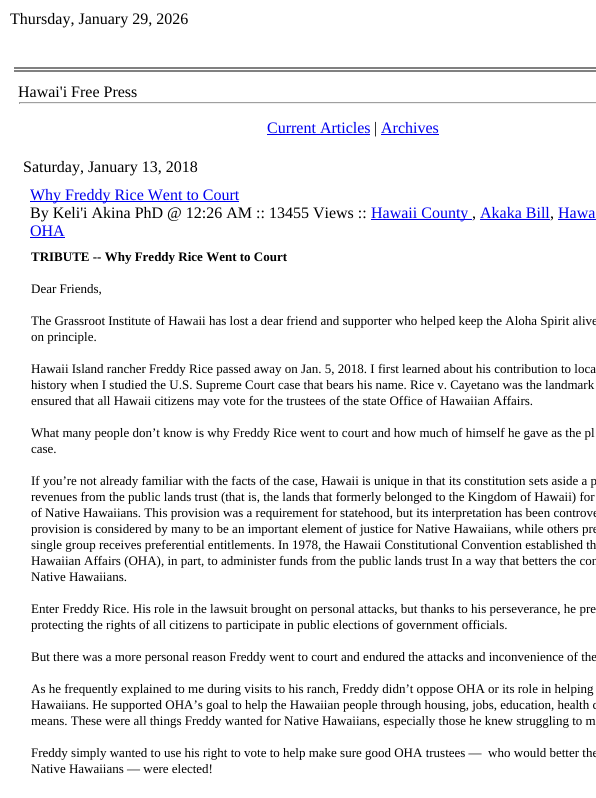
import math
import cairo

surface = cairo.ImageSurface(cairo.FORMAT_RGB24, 596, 798)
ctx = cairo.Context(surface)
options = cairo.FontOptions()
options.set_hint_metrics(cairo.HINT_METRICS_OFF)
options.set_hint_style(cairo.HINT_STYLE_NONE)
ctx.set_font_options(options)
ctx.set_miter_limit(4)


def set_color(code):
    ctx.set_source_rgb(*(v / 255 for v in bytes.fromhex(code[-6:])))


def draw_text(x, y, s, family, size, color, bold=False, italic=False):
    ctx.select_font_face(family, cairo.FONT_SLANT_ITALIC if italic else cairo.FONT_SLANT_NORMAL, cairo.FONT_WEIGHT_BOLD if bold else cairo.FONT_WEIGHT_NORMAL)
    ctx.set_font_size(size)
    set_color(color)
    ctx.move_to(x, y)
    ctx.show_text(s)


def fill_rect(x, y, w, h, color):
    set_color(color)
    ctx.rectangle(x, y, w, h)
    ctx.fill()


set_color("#ffffff")
ctx.paint()
draw_text(10, 24, "Thursday, January 29, 2026", "Liberation Serif", 16, "#000000")
fill_rect(14, 67, 582, 2, "#808080")
fill_rect(14, 70, 582, 2, "#808080")
draw_text(18, 97, "Hawai'i Free Press", "Liberation Serif", 16, "#000000")
fill_rect(19, 102, 577, 1, "#9f9f9f")
fill_rect(19, 103, 577, 1, "#eeeeee")
fill_rect(19, 102, 1, 2, "#9f9f9f")
draw_text(267, 133, "Current Articles", "Liberation Serif", 16, "#0000ee")
fill_rect(267, 134, 103, 1, "#0000ee")
draw_text(374, 133, "|", "Liberation Serif", 16, "#000000")
draw_text(381, 133, "Archives", "Liberation Serif", 16, "#0000ee")
fill_rect(381, 134, 58, 1, "#0000ee")
draw_text(23, 172, "Saturday, January 13, 2018", "Liberation Serif", 16, "#000000")
fill_rect(30, 201, 209, 1, "#0000ee")
draw_text(30, 200, "Why Freddy Rice Went to Court", "Liberation Serif", 16, "#0000ee")
draw_text(30, 218, "By Keli'i Akina PhD @ 12:26 AM :: 13455 Views ::", "Liberation Serif", 16, "#000000")
fill_rect(371, 219, 101, 1, "#0000ee")
draw_text(371, 218, "Hawaii County", "Liberation Serif", 16, "#0000ee")
draw_text(472, 218, ",", "Liberation Serif", 16, "#000000")
draw_text(480, 218, "Akaka Bill", "Liberation Serif", 16, "#0000ee")
fill_rect(480, 219, 70, 1, "#0000ee")
draw_text(550, 218, ",", "Liberation Serif", 16, "#000000")
draw_text(558, 218, "Hawa", "Liberation Serif", 16, "#0000ee")
fill_rect(558, 219, 38, 1, "#0000ee")
draw_text(30, 236, "OHA", "Liberation Serif", 16, "#0000ee")
fill_rect(30, 237, 35, 1, "#0000ee")
draw_text(31, 261, "TRIBUTE -- Why Freddy Rice Went to Court", "Liberation Serif", 13, "#000000", bold=True)
draw_text(31, 293, "Dear Friends,", "Liberation Serif", 13, "#000000")
draw_text(31, 325, "The Grassroot Institute of Hawaii has lost a dear friend and supporter who helped keep the Aloha Spirit alive", "Liberation Serif", 13, "#000000")
draw_text(31, 341, "on principle.", "Liberation Serif", 13, "#000000")
draw_text(31, 373, "Hawaii Island rancher Freddy Rice passed away on Jan. 5, 2018. I first learned about his contribution to loca", "Liberation Serif", 13, "#000000")
draw_text(31, 389, "history when I studied the U.S. Supreme Court case that bears his name. Rice v. Cayetano was the landmark", "Liberation Serif", 13, "#000000")
draw_text(31, 405, "ensured that all Hawaii citizens may vote for the trustees of the state Office of Hawaiian Affairs.", "Liberation Serif", 13, "#000000")
draw_text(31, 437, "What many people don’t know is why Freddy Rice went to court and how much of himself he gave as the pl", "Liberation Serif", 13, "#000000")
draw_text(31, 453, "case.", "Liberation Serif", 13, "#000000")
draw_text(31, 485, "If you’re not already familiar with the facts of the case, Hawaii is unique in that its constitution sets aside a p", "Liberation Serif", 13, "#000000")
draw_text(31, 501, "revenues from the public lands trust (that is, the lands that formerly belonged to the Kingdom of Hawaii) for", "Liberation Serif", 13, "#000000")
draw_text(31, 517, "of Native Hawaiians. This provision was a requirement for statehood, but its interpretation has been controve", "Liberation Serif", 13, "#000000")
draw_text(31, 533, "provision is considered by many to be an important element of justice for Native Hawaiians, while others pre", "Liberation Serif", 13, "#000000")
draw_text(31, 549, "single group receives preferential entitlements. In 1978, the Hawaii Constitutional Convention established th", "Liberation Serif", 13, "#000000")
draw_text(31, 565, "Hawaiian Affairs (OHA), in part, to administer funds from the public lands trust In a way that betters the con", "Liberation Serif", 13, "#000000")
draw_text(31, 581, "Native Hawaiians.", "Liberation Serif", 13, "#000000")
draw_text(31, 613, "Enter Freddy Rice. His role in the lawsuit brought on personal attacks, but thanks to his perseverance, he pre", "Liberation Serif", 13, "#000000")
draw_text(31, 629, "protecting the rights of all citizens to participate in public elections of government officials.", "Liberation Serif", 13, "#000000")
draw_text(31, 661, "But there was a more personal reason Freddy went to court and endured the attacks and inconvenience of the", "Liberation Serif", 13, "#000000")
draw_text(31, 693, "As he frequently explained to me during visits to his ranch, Freddy didn’t oppose OHA or its role in helping", "Liberation Serif", 13, "#000000")
draw_text(31, 709, "Hawaiians. He supported OHA’s goal to help the Hawaiian people through housing, jobs, education, health c", "Liberation Serif", 13, "#000000")
draw_text(31, 725, "means. These were all things Freddy wanted for Native Hawaiians, especially those he knew struggling to m", "Liberation Serif", 13, "#000000")
draw_text(31, 757, "Freddy simply wanted to use his right to vote to help make sure good OHA trustees —  who would better the", "Liberation Serif", 13, "#000000")
draw_text(31, 773, "Native Hawaiians — were elected!", "Liberation Serif", 13, "#000000")
surface.write_to_png("output.png")
